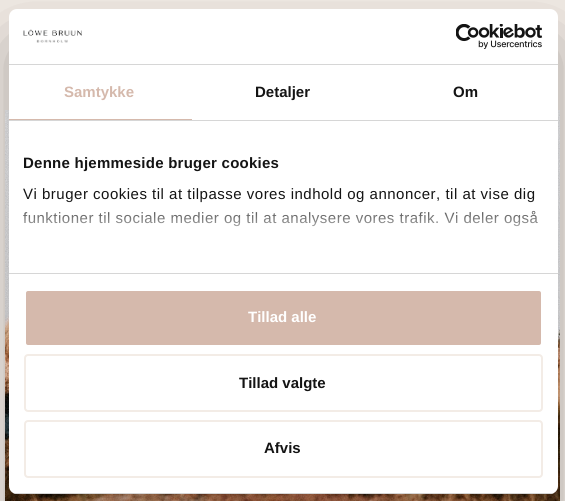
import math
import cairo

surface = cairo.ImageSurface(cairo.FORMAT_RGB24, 565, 501)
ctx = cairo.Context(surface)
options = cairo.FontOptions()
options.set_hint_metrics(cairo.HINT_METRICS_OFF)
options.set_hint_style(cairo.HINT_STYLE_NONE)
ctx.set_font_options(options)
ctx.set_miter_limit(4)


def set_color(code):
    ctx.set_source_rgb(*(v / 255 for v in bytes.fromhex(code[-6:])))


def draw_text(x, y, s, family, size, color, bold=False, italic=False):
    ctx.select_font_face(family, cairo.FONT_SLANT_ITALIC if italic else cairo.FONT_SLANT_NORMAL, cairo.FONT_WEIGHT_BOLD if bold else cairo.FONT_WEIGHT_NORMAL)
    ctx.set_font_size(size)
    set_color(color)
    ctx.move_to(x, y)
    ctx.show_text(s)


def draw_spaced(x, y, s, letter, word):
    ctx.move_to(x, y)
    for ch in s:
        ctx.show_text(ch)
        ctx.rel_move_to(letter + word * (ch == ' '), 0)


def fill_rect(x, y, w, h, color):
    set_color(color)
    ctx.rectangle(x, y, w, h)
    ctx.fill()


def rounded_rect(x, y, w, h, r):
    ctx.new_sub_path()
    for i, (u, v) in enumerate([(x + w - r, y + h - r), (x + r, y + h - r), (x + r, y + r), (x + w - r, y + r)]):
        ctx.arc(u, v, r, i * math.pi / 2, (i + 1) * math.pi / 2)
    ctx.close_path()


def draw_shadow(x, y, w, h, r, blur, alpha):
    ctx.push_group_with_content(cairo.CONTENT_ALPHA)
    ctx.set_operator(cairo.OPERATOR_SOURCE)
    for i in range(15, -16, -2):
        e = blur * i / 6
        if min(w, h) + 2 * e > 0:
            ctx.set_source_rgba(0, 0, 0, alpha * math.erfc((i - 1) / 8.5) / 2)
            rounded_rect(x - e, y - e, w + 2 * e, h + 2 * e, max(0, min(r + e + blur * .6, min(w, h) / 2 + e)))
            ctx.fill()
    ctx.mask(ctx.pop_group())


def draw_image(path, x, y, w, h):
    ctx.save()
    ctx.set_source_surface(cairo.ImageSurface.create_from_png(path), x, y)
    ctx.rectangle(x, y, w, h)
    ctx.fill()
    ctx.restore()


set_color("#f3ece6")
ctx.paint()
draw_image("assets/img3.png", 5, 110, 555, 391)
set_color("#000000")
draw_shadow(9, 41, 549, 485, 8, 34, 0.3)
set_color("#ffffff")
rounded_rect(9, 9, 549, 485, 8)
ctx.fill()
fill_rect(9, 64, 549, 1, "#d6d6d6")
draw_image("assets/img1.png", 23, 29, 59, 14)
draw_image("assets/img2.png", 456, 24, 87, 25)
fill_rect(9, 120, 549, 1, "#d6d6d6")
fill_rect(9, 119, 183, 1, "#d5b9ac")
draw_text(64, 97, "Samtykke", "Liberation Sans", 15, "#d5b9ac", bold=True)
draw_text(255, 97, "Detaljer", "Liberation Sans", 15, "#141414", bold=True)
draw_text(453, 97, "Om", "Liberation Sans", 15, "#141414", bold=True)
fill_rect(9, 273, 549, 1, "#d6d6d6")
set_color("#141414")
draw_spaced(23, 168, "Denne hjemmeside bruger cookies", 0.25, 0)
ctx.select_font_face("Liberation Sans")
draw_spaced(23, 199, "Vi bruger cookies til at tilpasse vores indhold og annoncer, til at vise dig", 0.5, 0)
draw_spaced(23, 223, "funktioner til sociale medier og til at analysere vores trafik. Vi deler også", 0.5, 0)
gradient = cairo.LinearGradient(277, 273, 277, 198)
gradient.add_color_stop_rgba(0, 1, 1, 1, 1)
gradient.add_color_stop_rgba(0.5, 1, 1, 1, 0.8)
gradient.add_color_stop_rgba(1, 1, 1, 1, 0)
ctx.set_source(gradient)
ctx.rectangle(23, 199, 515, 28)
ctx.fill()
ctx.save()
rounded_rect(9, 9, 549, 485, 8)
ctx.clip()
fill_rect(9, 493, 549, 1, "#d6d6d6")
ctx.restore()
set_color("#d5b9ac")
rounded_rect(25, 290, 517, 56, 3)
ctx.fill_preserve()
set_color("#ffffff")
ctx.stroke()
draw_text(248, 322, "Tillad alle", "Liberation Sans", 15, "#ffffff", bold=True)
rounded_rect(25, 355, 517, 56, 3)
set_color("#f3ece6")
ctx.stroke()
draw_text(239, 388, "Tillad valgte", "Liberation Sans", 15, "#141414", bold=True)
rounded_rect(25, 421, 517, 56, 3)
set_color("#f3ece6")
ctx.stroke()
draw_text(264, 453, "Afvis", "Liberation Sans", 15, "#141414", bold=True)
surface.write_to_png("output.png")
